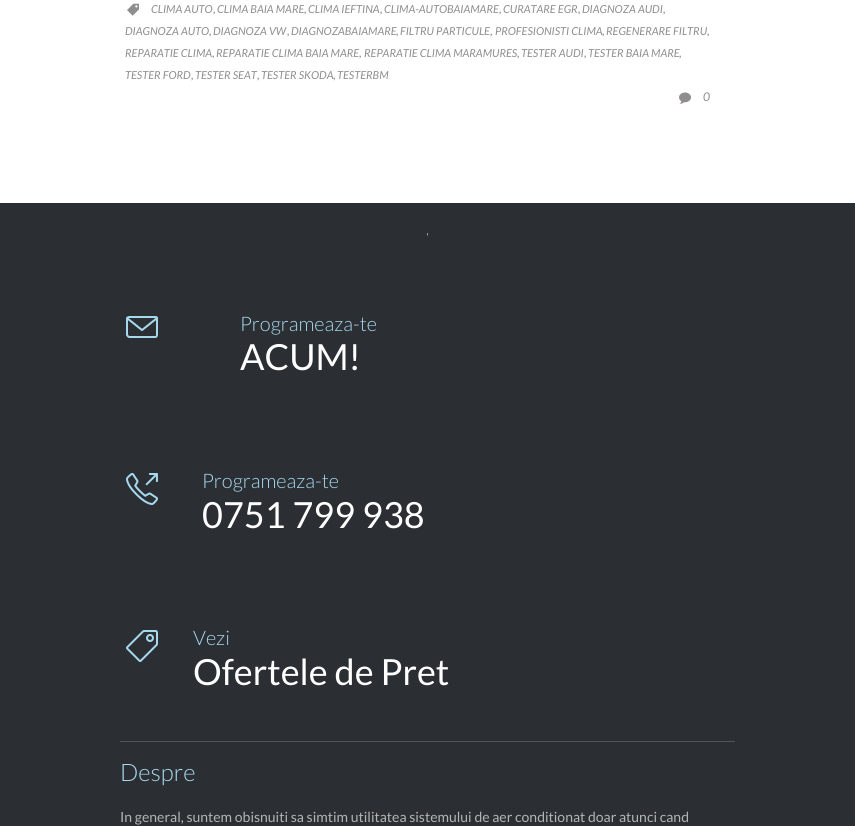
import math
import cairo

surface = cairo.ImageSurface(cairo.FORMAT_RGB24, 855, 826)
ctx = cairo.Context(surface)
options = cairo.FontOptions()
options.set_hint_metrics(cairo.HINT_METRICS_OFF)
options.set_hint_style(cairo.HINT_STYLE_NONE)
ctx.set_font_options(options)
ctx.set_miter_limit(4)


def set_color(code):
    ctx.set_source_rgb(*(v / 255 for v in bytes.fromhex(code[-6:])))


def draw_text(x, y, s, family, size, color, bold=False, italic=False):
    ctx.select_font_face(family, cairo.FONT_SLANT_ITALIC if italic else cairo.FONT_SLANT_NORMAL, cairo.FONT_WEIGHT_BOLD if bold else cairo.FONT_WEIGHT_NORMAL)
    ctx.set_font_size(size)
    set_color(color)
    ctx.move_to(x, y)
    ctx.show_text(s)


def fill_rect(x, y, w, h, color):
    set_color(color)
    ctx.rectangle(x, y, w, h)
    ctx.fill()


def draw_image(path, x, y, w, h):
    ctx.save()
    ctx.set_source_surface(cairo.ImageSurface.create_from_png(path), x, y)
    ctx.rectangle(x, y, w, h)
    ctx.fill()
    ctx.restore()


set_color("#ffffff")
ctx.paint()
draw_image("assets/img1.png", 127, 3, 12, 13)
draw_text(151, 13, "CLIMA AUTO", "Lato", 11, "#8f8d8e", italic=True)
draw_text(213, 13, ",", "Lato", 10, "#8f8d8e", bold=True)
draw_text(217, 13, "CLIMA BAIA MARE", "Lato", 11, "#8f8d8e", italic=True)
draw_text(308, 13, "CLIMA IEFTINA", "Lato", 11, "#8f8d8e", italic=True)
draw_text(384, 13, "CLIMA-AUTOBAIAMARE", "Lato", 11, "#8f8d8e", italic=True)
draw_text(503, 13, "CURATARE EGR", "Lato", 11, "#8f8d8e", italic=True)
draw_text(582, 13, "DIAGNOZA AUDI", "Lato", 11, "#8f8d8e", italic=True)
draw_text(304, 13, ",", "Lato", 10, "#8f8d8e", bold=True)
draw_text(380, 13, ",", "Lato", 10, "#8f8d8e", bold=True)
draw_text(499, 13, ",", "Lato", 10, "#8f8d8e", bold=True)
draw_text(578, 13, ",", "Lato", 10, "#8f8d8e", bold=True)
draw_text(663, 13, ",", "Lato", 10, "#8f8d8e", bold=True)
draw_text(125, 35, "DIAGNOZA AUTO", "Lato", 11, "#8f8d8e", italic=True)
draw_text(209, 35, ",", "Lato", 10, "#8f8d8e", bold=True)
draw_text(213, 35, "DIAGNOZA VW", "Lato", 11, "#8f8d8e", italic=True)
draw_text(291, 35, "DIAGNOZABAIAMARE", "Lato", 11, "#8f8d8e", italic=True)
draw_text(400, 35, "FILTRU PARTICULE", "Lato", 11, "#8f8d8e", italic=True)
draw_text(495, 35, "PROFESIONISTI CLIMA", "Lato", 11, "#8f8d8e", italic=True)
draw_text(606, 35, "REGENERARE FILTRU", "Lato", 11, "#8f8d8e", italic=True)
draw_text(287, 35, ",", "Lato", 10, "#8f8d8e", bold=True)
draw_text(396, 35, ",", "Lato", 10, "#8f8d8e", bold=True)
draw_text(490, 35, ",", "Lato", 10, "#8f8d8e", bold=True)
draw_text(602, 35, ",", "Lato", 10, "#8f8d8e", bold=True)
draw_text(707, 35, ",", "Lato", 10, "#8f8d8e", bold=True)
draw_text(125, 57, "REPARATIE CLIMA", "Lato", 11, "#8f8d8e", italic=True)
draw_text(212, 57, ",", "Lato", 10, "#8f8d8e", bold=True)
draw_text(216, 57, "REPARATIE CLIMA BAIA MARE", "Lato", 11, "#8f8d8e", italic=True)
draw_text(359, 57, ",", "Lato", 10, "#8f8d8e", bold=True)
draw_text(364, 57, "REPARATIE CLIMA MARAMURES", "Lato", 11, "#8f8d8e", italic=True)
draw_text(517, 57, ",", "Lato", 10, "#8f8d8e", bold=True)
draw_text(521, 57, "TESTER AUDI", "Lato", 11, "#8f8d8e", italic=True)
draw_text(584, 57, ",", "Lato", 10, "#8f8d8e", bold=True)
draw_text(588, 57, "TESTER BAIA MARE", "Lato", 11, "#8f8d8e", italic=True)
draw_text(679, 57, ",", "Lato", 10, "#8f8d8e", bold=True)
draw_text(125, 79, "TESTER FORD", "Lato", 11, "#8f8d8e", italic=True)
draw_text(191, 79, ",", "Lato", 10, "#8f8d8e", bold=True)
draw_text(195, 79, "TESTER SEAT", "Lato", 11, "#8f8d8e", italic=True)
draw_text(261, 79, "TESTER SKODA", "Lato", 11, "#8f8d8e", italic=True)
draw_text(337, 79, "TESTERBM", "Lato", 11, "#8f8d8e", italic=True)
draw_text(257, 79, ",", "Lato", 10, "#8f8d8e", bold=True)
draw_text(333, 79, ",", "Lato", 10, "#8f8d8e", bold=True)
draw_image("assets/img2.png", 679, 92, 12, 12)
draw_text(703, 101, "0", "Lato", 12, "#8f8d8e", italic=True)
fill_rect(0, 203, 855, 623, "#2b2f34")
draw_image("assets/img3.png", 427, 233, 1, 3)
draw_image("assets/img4.png", 126, 316, 32, 22)
draw_text(240, 331, "Programeaza-te", "Lato Light", 20, "#a7d9ee")
draw_text(240, 370, "ACUM!", "Lato", 36, "#ffffff")
draw_image("assets/img5.png", 126, 473, 32, 32)
draw_text(202, 488, "Programeaza-te", "Lato Light", 20, "#a7d9ee")
draw_text(202, 528, "0751 799 938", "Lato", 36, "#ffffff")
draw_image("assets/img6.png", 126, 630, 32, 32)
draw_text(193, 645, "Vezi", "Lato Light", 20, "#a7d9ee")
draw_text(193, 685, "Ofertele de Pret", "Lato", 36, "#ffffff")
fill_rect(120, 741, 615, 1, "#525559")
draw_text(120, 781, "Despre", "Lato Light", 24, "#a7d9ee")
draw_text(120, 822, "In general, suntem obisnuiti sa simtim utilitatea sistemului de aer conditionat doar atunci cand", "Lato", 14, "#b4b4b4")
surface.write_to_png("output.png")
